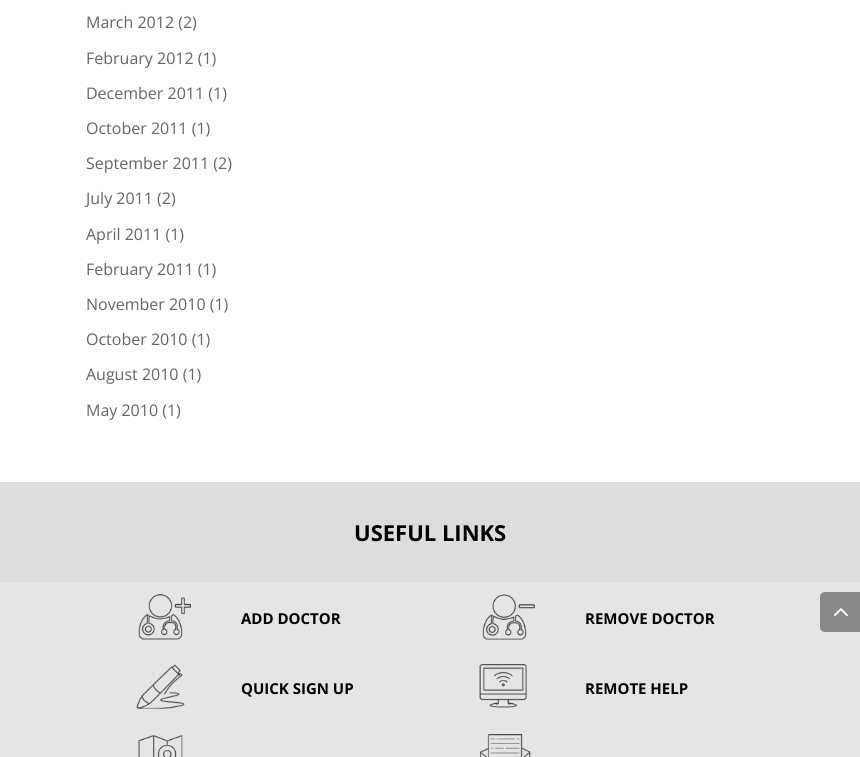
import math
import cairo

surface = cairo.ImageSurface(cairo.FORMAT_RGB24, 860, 757)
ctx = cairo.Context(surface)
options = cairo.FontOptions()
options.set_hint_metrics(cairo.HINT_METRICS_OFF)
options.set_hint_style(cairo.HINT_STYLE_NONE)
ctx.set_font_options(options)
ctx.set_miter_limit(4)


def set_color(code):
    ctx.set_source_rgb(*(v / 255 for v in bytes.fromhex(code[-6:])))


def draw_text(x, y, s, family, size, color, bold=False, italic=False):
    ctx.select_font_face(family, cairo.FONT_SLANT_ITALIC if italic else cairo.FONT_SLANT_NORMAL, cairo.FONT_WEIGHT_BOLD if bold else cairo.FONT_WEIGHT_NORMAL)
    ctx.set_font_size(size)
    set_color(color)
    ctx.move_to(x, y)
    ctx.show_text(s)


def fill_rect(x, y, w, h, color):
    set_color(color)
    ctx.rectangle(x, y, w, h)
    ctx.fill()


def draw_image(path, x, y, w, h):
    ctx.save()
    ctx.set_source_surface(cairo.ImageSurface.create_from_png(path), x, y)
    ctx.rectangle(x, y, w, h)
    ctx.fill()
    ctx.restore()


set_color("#ffffff")
ctx.paint()
draw_text(86, 28, "March 2012 (2)", "Open Sans", 16, "#666666")
draw_text(86, 64, "February 2012 (1)", "Open Sans", 16, "#666666")
draw_text(86, 99, "December 2011 (1)", "Open Sans", 16, "#666666")
draw_text(86, 134, "October 2011 (1)", "Open Sans", 16, "#666666")
draw_text(86, 169, "September 2011 (2)", "Open Sans", 16, "#666666")
draw_text(86, 204, "July 2011 (2)", "Open Sans", 16, "#666666")
draw_text(86, 240, "April 2011 (1)", "Open Sans", 16, "#666666")
draw_text(86, 275, "February 2011 (1)", "Open Sans", 16, "#666666")
draw_text(86, 310, "November 2010 (1)", "Open Sans", 16, "#666666")
draw_text(86, 345, "October 2010 (1)", "Open Sans", 16, "#666666")
draw_text(86, 380, "August 2010 (1)", "Open Sans", 16, "#666666")
draw_text(86, 416, "May 2010 (1)", "Open Sans", 16, "#666666")
fill_rect(0, 582, 860, 175, "#e5e5e5")
fill_rect(0, 482, 860, 100, "#dddddd")
draw_text(354, 541, "USEFUL LINKS", "Open Sans", 22, "#000000", bold=True)
draw_image("assets/img1.png", 138, 594, 53, 46)
draw_text(241, 624, "ADD DOCTOR", "Open Sans", 15, "#000000", bold=True)
draw_image("assets/img2.png", 482, 594, 53, 46)
draw_text(585, 624, "REMOVE DOCTOR", "Open Sans", 15, "#000000", bold=True)
draw_image("assets/img3.png", 136, 664, 49, 45)
draw_text(241, 694, "QUICK SIGN UP", "Open Sans", 15, "#000000", bold=True)
draw_image("assets/img4.png", 479, 664, 48, 44)
draw_text(585, 694, "REMOTE HELP", "Open Sans", 15, "#000000", bold=True)
draw_image("assets/img5.png", 138, 735, 45, 22)
draw_image("assets/img6.png", 480, 734, 51, 23)
set_color("#898989")
ctx.new_path()
ctx.move_to(825, 592)
ctx.line_to(860, 592)
ctx.line_to(860, 632)
ctx.line_to(825, 632)
ctx.curve_to(822, 632, 820, 630, 820, 627)
ctx.line_to(820, 597)
ctx.curve_to(820, 594, 822, 592, 825, 592)
ctx.close_path()
ctx.fill()
draw_image("assets/img7.png", 833, 608, 15, 8)
surface.write_to_png("output.png")
